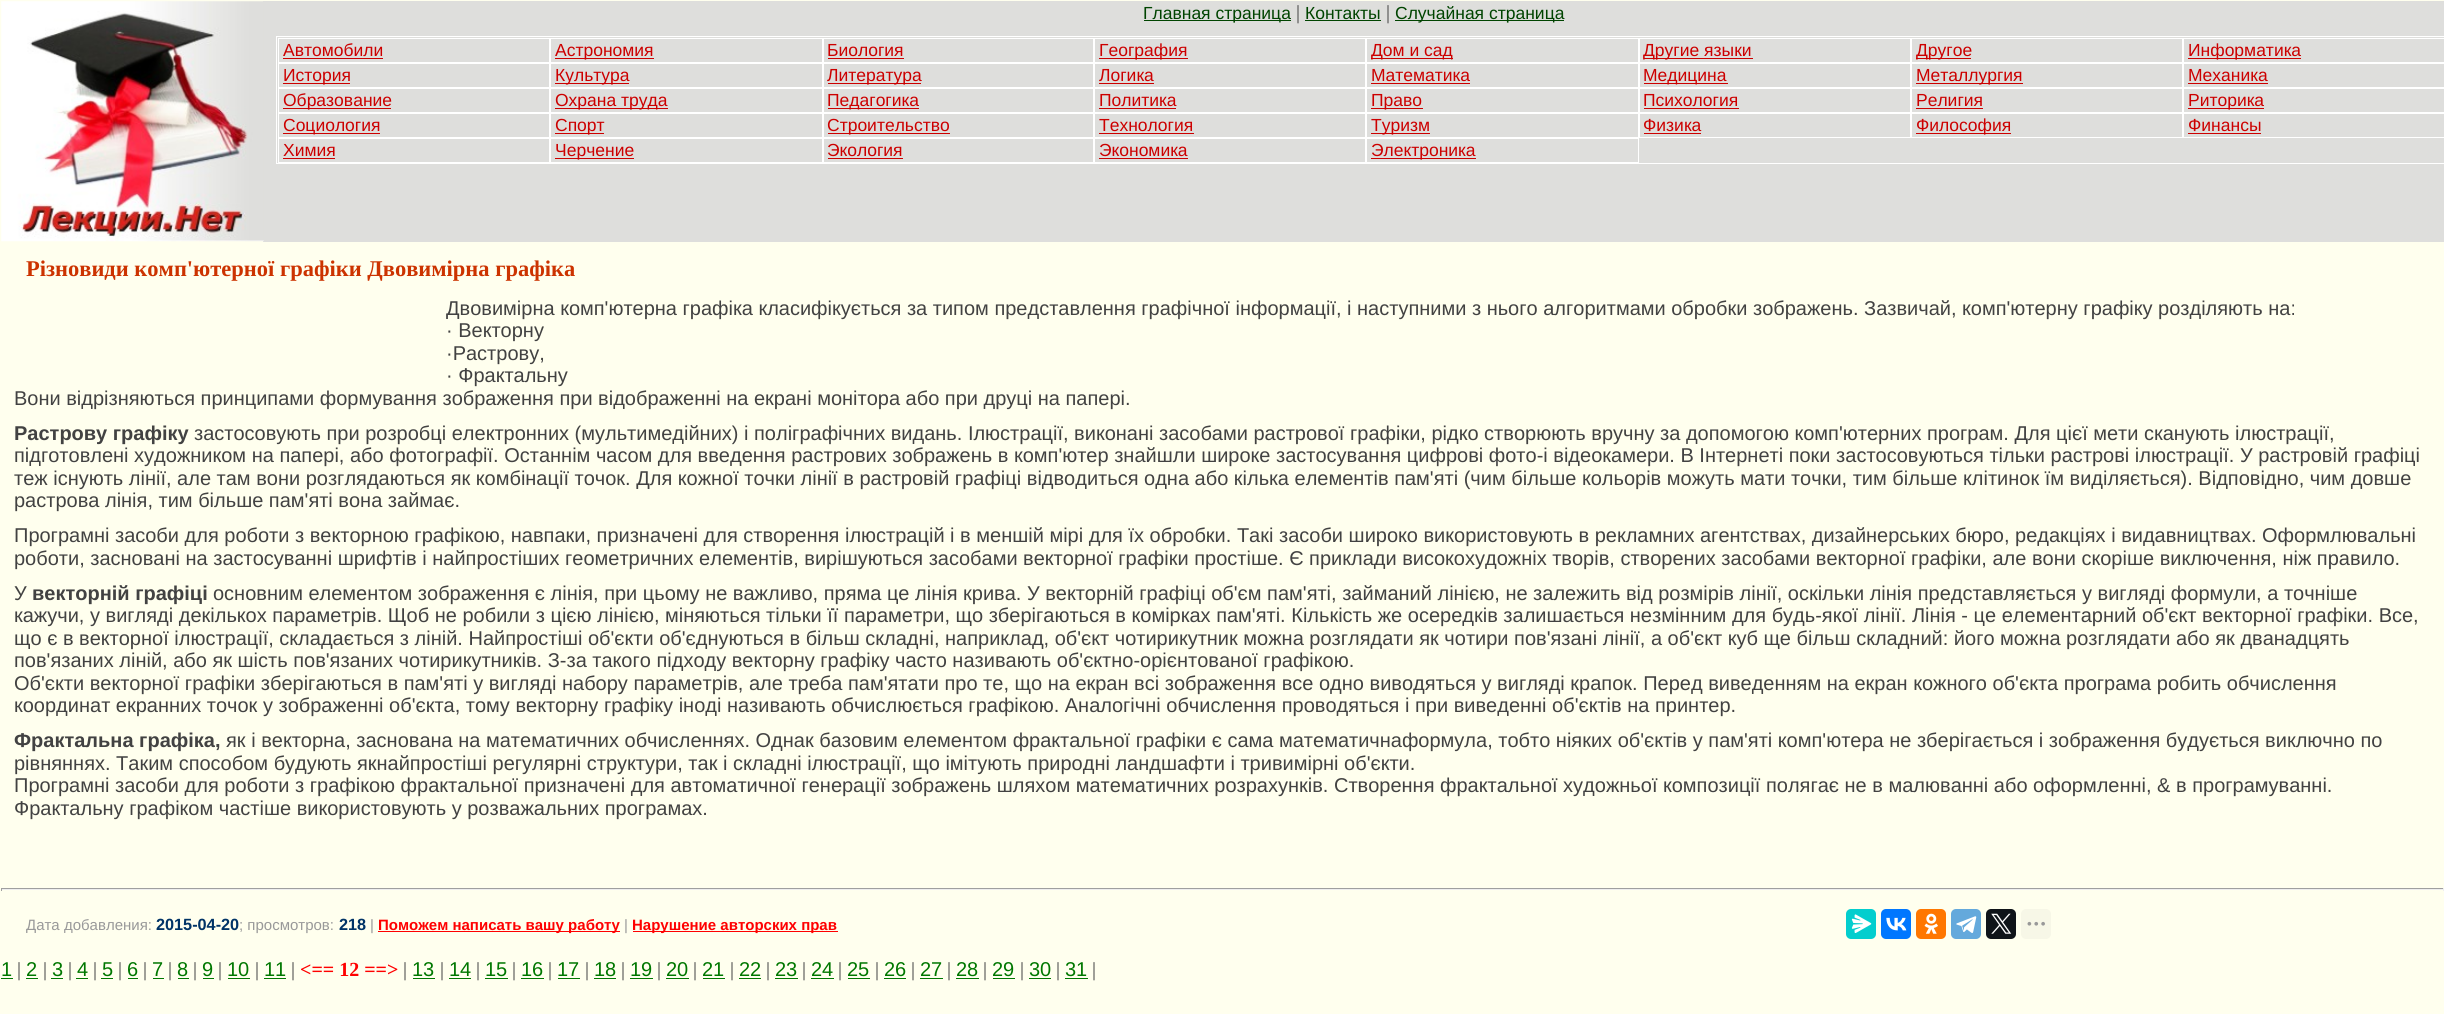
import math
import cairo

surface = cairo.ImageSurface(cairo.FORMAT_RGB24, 2444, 1014)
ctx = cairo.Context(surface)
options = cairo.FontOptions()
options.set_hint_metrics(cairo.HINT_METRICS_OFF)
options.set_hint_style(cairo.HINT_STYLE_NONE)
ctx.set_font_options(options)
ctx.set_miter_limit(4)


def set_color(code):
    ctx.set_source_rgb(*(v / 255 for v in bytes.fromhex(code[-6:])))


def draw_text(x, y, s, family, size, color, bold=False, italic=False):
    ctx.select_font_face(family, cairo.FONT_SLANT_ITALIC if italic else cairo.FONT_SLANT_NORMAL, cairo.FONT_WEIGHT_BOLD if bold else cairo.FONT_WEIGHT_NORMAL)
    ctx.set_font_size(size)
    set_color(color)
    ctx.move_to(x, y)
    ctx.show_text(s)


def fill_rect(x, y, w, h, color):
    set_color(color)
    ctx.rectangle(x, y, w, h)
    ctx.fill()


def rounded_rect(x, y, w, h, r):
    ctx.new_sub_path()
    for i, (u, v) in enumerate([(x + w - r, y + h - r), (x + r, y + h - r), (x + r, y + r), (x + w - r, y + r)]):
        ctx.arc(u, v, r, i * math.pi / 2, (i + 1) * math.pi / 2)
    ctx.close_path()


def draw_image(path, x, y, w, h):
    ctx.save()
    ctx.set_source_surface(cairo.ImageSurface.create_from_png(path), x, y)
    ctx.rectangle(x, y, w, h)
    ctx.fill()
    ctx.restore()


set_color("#ffffee")
ctx.paint()
fill_rect(263, 1, 2181, 241, "#dededc")
draw_image("assets/img1.png", 1, 1, 263, 241)
fill_rect(1144, 20, 147, 1, "#004400")
draw_text(1143, 19, "Главная страница", "Liberation Sans", 17.5, "#004400")
draw_text(1296, 19, "|", "Liberation Serif", 20, "#424242")
draw_text(1305, 19, "Контакты", "Liberation Sans", 17.5, "#004400")
fill_rect(1305, 20, 76, 1, "#004400")
draw_text(1386, 19, "|", "Liberation Serif", 20, "#424242")
fill_rect(1395, 20, 169, 1, "#004400")
draw_text(1395, 19, "Случайная страница", "Liberation Sans", 17.5, "#004400")
ctx.rectangle(276.5, 36.5, 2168, 127)
set_color("#ffffff")
ctx.set_line_width(1)
ctx.stroke()
ctx.rectangle(278.5, 38.5, 271, 24)
ctx.stroke()
draw_text(283, 56, "Автомобили", "Liberation Sans", 17.5, "#cc0000")
fill_rect(283, 58, 100, 1, "#cc0000")
ctx.rectangle(550.5, 38.5, 272, 24)
set_color("#ffffff")
ctx.stroke()
fill_rect(555, 58, 99, 1, "#cc0000")
draw_text(555, 56, "Астрономия", "Liberation Sans", 17.5, "#cc0000")
ctx.rectangle(823.5, 38.5, 270, 24)
set_color("#ffffff")
ctx.stroke()
draw_text(827, 56, "Биология", "Liberation Sans", 17.5, "#cc0000")
fill_rect(828, 58, 76, 1, "#cc0000")
ctx.rectangle(1094.5, 38.5, 271, 24)
set_color("#ffffff")
ctx.stroke()
fill_rect(1099, 58, 89, 1, "#cc0000")
draw_text(1099, 56, "География", "Liberation Sans", 17.5, "#cc0000")
ctx.rectangle(1366.5, 38.5, 272, 24)
set_color("#ffffff")
ctx.stroke()
fill_rect(1371, 58, 82, 1, "#cc0000")
draw_text(1371, 56, "Дом и сад", "Liberation Sans", 17.5, "#cc0000")
ctx.rectangle(1639.5, 38.5, 271, 24)
set_color("#ffffff")
ctx.stroke()
fill_rect(1644, 58, 109, 1, "#cc0000")
draw_text(1643, 56, "Другие языки", "Liberation Sans", 17.5, "#cc0000")
ctx.rectangle(1911.5, 38.5, 271, 24)
set_color("#ffffff")
ctx.stroke()
fill_rect(1916, 58, 55, 1, "#cc0000")
draw_text(1916, 56, "Другое", "Liberation Sans", 17.5, "#cc0000")
ctx.rectangle(2183.5, 38.5, 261, 24)
set_color("#ffffff")
ctx.stroke()
fill_rect(2188, 58, 113, 1, "#cc0000")
draw_text(2188, 56, "Информатика", "Liberation Sans", 17.5, "#cc0000")
ctx.rectangle(278.5, 63.5, 271, 24)
set_color("#ffffff")
ctx.stroke()
fill_rect(283, 83, 67, 1, "#cc0000")
draw_text(283, 81, "История", "Liberation Sans", 17.5, "#cc0000")
ctx.rectangle(550.5, 63.5, 272, 24)
set_color("#ffffff")
ctx.stroke()
fill_rect(555, 83, 74, 1, "#cc0000")
draw_text(555, 81, "Культура", "Liberation Sans", 17.5, "#cc0000")
ctx.rectangle(823.5, 63.5, 270, 24)
set_color("#ffffff")
ctx.stroke()
fill_rect(828, 83, 93, 1, "#cc0000")
draw_text(827, 81, "Литература", "Liberation Sans", 17.5, "#cc0000")
ctx.rectangle(1094.5, 63.5, 271, 24)
set_color("#ffffff")
ctx.stroke()
draw_text(1099, 81, "Логика", "Liberation Sans", 17.5, "#cc0000")
fill_rect(1099, 83, 55, 1, "#cc0000")
ctx.rectangle(1366.5, 63.5, 272, 24)
set_color("#ffffff")
ctx.stroke()
draw_text(1371, 81, "Математика", "Liberation Sans", 17.5, "#cc0000")
fill_rect(1371, 83, 99, 1, "#cc0000")
ctx.rectangle(1639.5, 63.5, 271, 24)
set_color("#ffffff")
ctx.stroke()
fill_rect(1644, 83, 84, 1, "#cc0000")
draw_text(1643, 81, "Медицина", "Liberation Sans", 17.5, "#cc0000")
ctx.rectangle(1911.5, 63.5, 271, 24)
set_color("#ffffff")
ctx.stroke()
fill_rect(1916, 83, 107, 1, "#cc0000")
draw_text(1916, 81, "Металлургия", "Liberation Sans", 17.5, "#cc0000")
ctx.rectangle(2183.5, 63.5, 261, 24)
set_color("#ffffff")
ctx.stroke()
draw_text(2188, 81, "Механика", "Liberation Sans", 17.5, "#cc0000")
fill_rect(2188, 83, 80, 1, "#cc0000")
ctx.rectangle(278.5, 88.5, 271, 24)
set_color("#ffffff")
ctx.stroke()
fill_rect(283, 108, 108, 1, "#cc0000")
draw_text(283, 106, "Образование", "Liberation Sans", 17.5, "#cc0000")
ctx.rectangle(550.5, 88.5, 272, 24)
set_color("#ffffff")
ctx.stroke()
fill_rect(555, 108, 113, 1, "#cc0000")
draw_text(555, 106, "Охрана труда", "Liberation Sans", 17.5, "#cc0000")
ctx.rectangle(823.5, 88.5, 270, 24)
set_color("#ffffff")
ctx.stroke()
fill_rect(828, 108, 91, 1, "#cc0000")
draw_text(827, 106, "Педагогика", "Liberation Sans", 17.5, "#cc0000")
ctx.rectangle(1094.5, 88.5, 271, 24)
set_color("#ffffff")
ctx.stroke()
draw_text(1099, 106, "Политика", "Liberation Sans", 17.5, "#cc0000")
fill_rect(1099, 108, 77, 1, "#cc0000")
ctx.rectangle(1366.5, 88.5, 272, 24)
set_color("#ffffff")
ctx.stroke()
fill_rect(1371, 108, 52, 1, "#cc0000")
draw_text(1371, 106, "Право", "Liberation Sans", 17.5, "#cc0000")
ctx.rectangle(1639.5, 88.5, 271, 24)
set_color("#ffffff")
ctx.stroke()
draw_text(1643, 106, "Психология", "Liberation Sans", 17.5, "#cc0000")
fill_rect(1644, 108, 95, 1, "#cc0000")
ctx.rectangle(1911.5, 88.5, 271, 24)
set_color("#ffffff")
ctx.stroke()
draw_text(1916, 106, "Религия", "Liberation Sans", 17.5, "#cc0000")
fill_rect(1916, 108, 67, 1, "#cc0000")
ctx.rectangle(2183.5, 88.5, 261, 24)
set_color("#ffffff")
ctx.stroke()
fill_rect(2188, 108, 76, 1, "#cc0000")
draw_text(2188, 106, "Риторика", "Liberation Sans", 17.5, "#cc0000")
ctx.rectangle(278.5, 113.5, 271, 24)
set_color("#ffffff")
ctx.stroke()
fill_rect(283, 133, 97, 1, "#cc0000")
draw_text(283, 131, "Социология", "Liberation Sans", 17.5, "#cc0000")
ctx.rectangle(550.5, 113.5, 272, 24)
set_color("#ffffff")
ctx.stroke()
fill_rect(555, 133, 49, 1, "#cc0000")
draw_text(555, 131, "Спорт", "Liberation Sans", 17.5, "#cc0000")
ctx.rectangle(823.5, 113.5, 270, 24)
set_color("#ffffff")
ctx.stroke()
fill_rect(828, 133, 122, 1, "#cc0000")
draw_text(827, 131, "Строительство", "Liberation Sans", 17.5, "#cc0000")
ctx.rectangle(1094.5, 113.5, 271, 24)
set_color("#ffffff")
ctx.stroke()
draw_text(1099, 131, "Технология", "Liberation Sans", 17.5, "#cc0000")
fill_rect(1099, 133, 95, 1, "#cc0000")
ctx.rectangle(1366.5, 113.5, 272, 24)
set_color("#ffffff")
ctx.stroke()
fill_rect(1371, 133, 59, 1, "#cc0000")
draw_text(1371, 131, "Туризм", "Liberation Sans", 17.5, "#cc0000")
ctx.rectangle(1639.5, 113.5, 271, 24)
set_color("#ffffff")
ctx.stroke()
draw_text(1643, 131, "Физика", "Liberation Sans", 17.5, "#cc0000")
fill_rect(1644, 133, 57, 1, "#cc0000")
ctx.rectangle(1911.5, 113.5, 271, 24)
set_color("#ffffff")
ctx.stroke()
fill_rect(1916, 133, 95, 1, "#cc0000")
draw_text(1916, 131, "Философия", "Liberation Sans", 17.5, "#cc0000")
ctx.rectangle(2183.5, 113.5, 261, 24)
set_color("#ffffff")
ctx.stroke()
draw_text(2188, 131, "Финансы", "Liberation Sans", 17.5, "#cc0000")
fill_rect(2188, 133, 73, 1, "#cc0000")
ctx.rectangle(278.5, 138.5, 271, 24)
set_color("#ffffff")
ctx.stroke()
draw_text(283, 156, "Химия", "Liberation Sans", 17.5, "#cc0000")
fill_rect(283, 158, 52, 1, "#cc0000")
ctx.rectangle(550.5, 138.5, 272, 24)
set_color("#ffffff")
ctx.stroke()
fill_rect(555, 158, 79, 1, "#cc0000")
draw_text(555, 156, "Черчение", "Liberation Sans", 17.5, "#cc0000")
ctx.rectangle(823.5, 138.5, 270, 24)
set_color("#ffffff")
ctx.stroke()
draw_text(827, 156, "Экология", "Liberation Sans", 17.5, "#cc0000")
fill_rect(828, 158, 75, 1, "#cc0000")
ctx.rectangle(1094.5, 138.5, 271, 24)
set_color("#ffffff")
ctx.stroke()
draw_text(1099, 156, "Экономика", "Liberation Sans", 17.5, "#cc0000")
fill_rect(1099, 158, 89, 1, "#cc0000")
ctx.rectangle(1366.5, 138.5, 272, 24)
set_color("#ffffff")
ctx.stroke()
fill_rect(1371, 158, 105, 1, "#cc0000")
draw_text(1371, 156, "Электроника", "Liberation Sans", 17.5, "#cc0000")
draw_text(26, 276, "Різновиди комп'ютерної графіки Двовимірна графіка", "Liberation Serif", 22.5, "#cc3300", bold=True)
draw_text(446, 315, "Двовимірна комп'ютерна графіка класифікується за типом представлення графічної інформації, і наступними з нього алгоритмами обробки зображень. Зазвичай, комп'ютерну графіку розділяють на:", "Liberation Sans", 20, "#424242")
draw_text(446, 337, "· Векторну", "Liberation Sans", 20, "#424242")
draw_text(446, 360, "·Растрову,", "Liberation Sans", 20, "#424242")
draw_text(446, 382, "· Фрактальну", "Liberation Sans", 20, "#424242")
draw_text(14, 405, "Вони відрізняються принципами формування зображення при відображенні на екрані монітора або при друці на папері.", "Liberation Sans", 20, "#424242")
draw_text(14, 440, "Растрову графіку", "Liberation Sans", 20, "#424242", bold=True)
draw_text(194, 440, "застосовують при розробці електронних (мультимедійних) і поліграфічних видань. Ілюстрації, виконані засобами растрової графіки, рідко створюють вручну за допомогою комп'ютерних програм. Для цієї мети сканують ілюстрації,", "Liberation Sans", 20, "#424242")
draw_text(14, 462, "підготовлені художником на папері, або фотографії. Останнім часом для введення растрових зображень в комп'ютер знайшли широке застосування цифрові фото-і відеокамери. В Інтернеті поки застосовуються тільки растрові ілюстрації. У растровій графіці", "Liberation Sans", 20, "#424242")
draw_text(14, 485, "теж існують лінії, але там вони розглядаються як комбінації точок. Для кожної точки лінії в растровій графіці відводиться одна або кілька елементів пам'яті (чим більше кольорів можуть мати точки, тим більше клітинок їм виділяється). Відповідно, чим довше", "Liberation Sans", 20, "#424242")
draw_text(14, 507, "растрова лінія, тим більше пам'яті вона займає.", "Liberation Sans", 20, "#424242")
draw_text(14, 542, "Програмні засоби для роботи з векторною графікою, навпаки, призначені для створення ілюстрацій і в меншій мірі для їх обробки. Такі засоби широко використовують в рекламних агентствах, дизайнерських бюро, редакціях і видавництвах. Оформлювальні", "Liberation Sans", 20, "#424242")
draw_text(14, 565, "роботи, засновані на застосуванні шрифтів і найпростіших геометричних елементів, вирішуються засобами векторної графіки простіше. Є приклади високохудожніх творів, створених засобами векторної графіки, але вони скоріше виключення, ніж правило.", "Liberation Sans", 20, "#424242")
draw_text(14, 600, "У", "Liberation Sans", 20, "#424242")
draw_text(32, 600, "векторній графіці", "Liberation Sans", 20, "#424242", bold=True)
draw_text(213, 600, "основним елементом зображення є лінія, при цьому не важливо, пряма це лінія крива. У векторній графіці об'єм пам'яті, займаний лінією, не залежить від розмірів лінії, оскільки лінія представляється у вигляді формули, а точніше", "Liberation Sans", 20, "#424242")
draw_text(14, 622, "кажучи, у вигляді декількох параметрів. Щоб не робили з цією лінією, міняються тільки її параметри, що зберігаються в комірках пам'яті. Кількість же осередків залишається незмінним для будь-якої лінії. Лінія - це елементарний об'єкт векторної графіки. Все,", "Liberation Sans", 20, "#424242")
draw_text(14, 645, "що є в векторної ілюстрації, складається з ліній. Найпростіші об'єкти об'єднуються в більш складні, наприклад, об'єкт чотирикутник можна розглядати як чотири пов'язані лінії, а об'єкт куб ще більш складний: його можна розглядати або як дванадцять", "Liberation Sans", 20, "#424242")
draw_text(14, 667, "пов'язаних ліній, або як шість пов'язаних чотирикутників. З-за такого підходу векторну графіку часто називають об'єктно-орієнтованої графікою.", "Liberation Sans", 20, "#424242")
draw_text(14, 690, "Об'єкти векторної графіки зберігаються в пам'яті у вигляді набору параметрів, але треба пам'ятати про те, що на екран всі зображення все одно виводяться у вигляді крапок. Перед виведенням на екран кожного об'єкта програма робить обчислення", "Liberation Sans", 20, "#424242")
draw_text(14, 712, "координат екранних точок у зображенні об'єкта, тому векторну графіку іноді називають обчислюється графікою. Аналогічні обчислення проводяться і при виведенні об'єктів на принтер.", "Liberation Sans", 20, "#424242")
draw_text(14, 747, "Фрактальна графіка,", "Liberation Sans", 20, "#424242", bold=True)
draw_text(226, 747, "як і векторна, заснована на математичних обчисленнях. Однак базовим елементом фрактальної графіки є сама математичнаформула, тобто ніяких об'єктів у пам'яті комп'ютера не зберігається і зображення будується виключно по", "Liberation Sans", 20, "#424242")
draw_text(14, 770, "рівняннях. Таким способом будують якнайпростіші регулярні структури, так і складні ілюстрації, що імітують природні ландшафти і тривимірні об'єкти.", "Liberation Sans", 20, "#424242")
draw_text(14, 792, "Програмні засоби для роботи з графікою фрактальної призначені для автоматичної генерації зображень шляхом математичних розрахунків. Створення фрактальної художньої композиції полягає не в малюванні або оформленні, & в програмуванні.", "Liberation Sans", 20, "#424242")
draw_text(14, 815, "Фрактальну графіком частіше використовують у розважальних програмах.", "Liberation Sans", 20, "#424242")
fill_rect(1, 888, 2443, 1, "#9f9f9f")
fill_rect(2443, 888, 1, 3, "#eeeeee")
fill_rect(1, 889, 2443, 1, "#eeeeee")
fill_rect(1, 888, 1, 3, "#9f9f9f")
draw_text(26, 930, "Дата добавления:", "Liberation Sans", 15, "#999999")
draw_text(156, 930, "2015-04-20", "Liberation Sans", 16.25, "#003366", bold=True)
draw_text(239, 930, "; просмотров:", "Liberation Sans", 15, "#999999")
draw_text(339, 930, "218", "Liberation Sans", 16.25, "#003366", bold=True)
draw_text(370, 930, "|", "Liberation Sans", 15, "#999999")
fill_rect(378, 931, 242, 1, "#ff0000")
draw_text(378, 930, "Поможем написать вашу работу", "Liberation Sans", 15, "#ff0000", bold=True)
draw_text(624, 930, "|", "Liberation Sans", 15, "#999999")
fill_rect(633, 931, 205, 1, "#ff0000")
draw_text(632, 930, "Нарушение авторских прав", "Liberation Sans", 15, "#ff0000", bold=True)
set_color("#03cece")
rounded_rect(1846, 909, 30, 30, 5)
ctx.fill()
draw_image("assets/img2.png", 1851, 914, 21, 19)
set_color("#0077ff")
rounded_rect(1881, 909, 30, 30, 5)
ctx.fill()
draw_image("assets/img3.png", 1886, 917, 21, 14)
set_color("#ff7700")
rounded_rect(1916, 909, 30, 30, 5)
ctx.fill()
draw_image("assets/img4.png", 1924, 913, 14, 21)
set_color("#64a9dc")
rounded_rect(1951, 909, 30, 30, 5)
ctx.fill()
draw_image("assets/img5.png", 1956, 916, 21, 17)
set_color("#0f1419")
rounded_rect(1986, 909, 30, 30, 5)
ctx.fill()
draw_image("assets/img6.png", 1991, 913, 21, 21)
set_color("#f7f7e7")
rounded_rect(2021, 909, 30, 30, 5)
ctx.fill()
draw_image("assets/img7.png", 2027, 921, 18, 5)
draw_text(1, 976, "1", "Liberation Sans", 20, "#007700")
fill_rect(1, 978, 12, 1, "#007700")
draw_text(17, 976, "|", "Liberation Serif", 20, "#424242")
draw_text(26, 976, "2", "Liberation Sans", 20, "#007700")
fill_rect(26, 978, 12, 1, "#007700")
draw_text(43, 976, "|", "Liberation Serif", 20, "#424242")
draw_text(52, 976, "3", "Liberation Sans", 20, "#007700")
fill_rect(51, 978, 12, 1, "#007700")
draw_text(68, 976, "|", "Liberation Serif", 20, "#424242")
draw_text(77, 976, "4", "Liberation Sans", 20, "#007700")
fill_rect(76, 978, 12, 1, "#007700")
draw_text(93, 976, "|", "Liberation Serif", 20, "#424242")
draw_text(102, 976, "5", "Liberation Sans", 20, "#007700")
fill_rect(101, 978, 12, 1, "#007700")
draw_text(118, 976, "|", "Liberation Serif", 20, "#424242")
draw_text(127, 976, "6", "Liberation Sans", 20, "#007700")
fill_rect(128, 978, 10, 1, "#007700")
draw_text(143, 976, "|", "Liberation Serif", 20, "#424242")
draw_text(152, 976, "7", "Liberation Sans", 20, "#007700")
fill_rect(153, 978, 11, 1, "#007700")
draw_text(168, 976, "|", "Liberation Serif", 20, "#424242")
draw_text(177, 976, "8", "Liberation Sans", 20, "#007700")
fill_rect(178, 978, 11, 1, "#007700")
draw_text(193, 976, "|", "Liberation Serif", 20, "#424242")
draw_text(202, 976, "9", "Liberation Sans", 20, "#007700")
fill_rect(203, 978, 11, 1, "#007700")
draw_text(218, 976, "|", "Liberation Serif", 20, "#424242")
draw_text(227, 976, "10", "Liberation Sans", 20, "#007700")
fill_rect(228, 978, 22, 1, "#007700")
draw_text(255, 976, "|", "Liberation Serif", 20, "#424242")
draw_text(264, 976, "11", "Liberation Sans", 20, "#007700")
fill_rect(264, 978, 22, 1, "#007700")
draw_text(291, 976, "|", "Liberation Serif", 20, "#424242")
draw_text(300, 976, "<== 12 ==>", "Liberation Serif", 20, "#ff0000", bold=True)
draw_text(403, 976, "|", "Liberation Serif", 20, "#424242")
draw_text(412, 976, "13", "Liberation Sans", 20, "#007700")
fill_rect(413, 978, 22, 1, "#007700")
draw_text(440, 976, "|", "Liberation Serif", 20, "#424242")
draw_text(449, 976, "14", "Liberation Sans", 20, "#007700")
fill_rect(449, 978, 22, 1, "#007700")
draw_text(476, 976, "|", "Liberation Serif", 20, "#424242")
draw_text(485, 976, "15", "Liberation Sans", 20, "#007700")
fill_rect(485, 978, 23, 1, "#007700")
draw_text(512, 976, "|", "Liberation Serif", 20, "#424242")
draw_text(521, 976, "16", "Liberation Sans", 20, "#007700")
fill_rect(521, 978, 23, 1, "#007700")
draw_text(548, 976, "|", "Liberation Serif", 20, "#424242")
draw_text(557, 976, "17", "Liberation Sans", 20, "#007700")
fill_rect(558, 978, 22, 1, "#007700")
draw_text(585, 976, "|", "Liberation Serif", 20, "#424242")
draw_text(594, 976, "18", "Liberation Sans", 20, "#007700")
fill_rect(594, 978, 22, 1, "#007700")
draw_text(621, 976, "|", "Liberation Serif", 20, "#424242")
draw_text(630, 976, "19", "Liberation Sans", 20, "#007700")
fill_rect(630, 978, 23, 1, "#007700")
draw_text(657, 976, "|", "Liberation Serif", 20, "#424242")
draw_text(666, 976, "20", "Liberation Sans", 20, "#007700")
fill_rect(666, 978, 23, 1, "#007700")
draw_text(693, 976, "|", "Liberation Serif", 20, "#424242")
draw_text(702, 976, "21", "Liberation Sans", 20, "#007700")
fill_rect(703, 978, 22, 1, "#007700")
draw_text(730, 976, "|", "Liberation Serif", 20, "#424242")
draw_text(739, 976, "22", "Liberation Sans", 20, "#007700")
fill_rect(739, 978, 22, 1, "#007700")
draw_text(766, 976, "|", "Liberation Serif", 20, "#424242")
draw_text(775, 976, "23", "Liberation Sans", 20, "#007700")
fill_rect(775, 978, 23, 1, "#007700")
draw_text(802, 976, "|", "Liberation Serif", 20, "#424242")
draw_text(811, 976, "24", "Liberation Sans", 20, "#007700")
fill_rect(811, 978, 23, 1, "#007700")
draw_text(838, 976, "|", "Liberation Serif", 20, "#424242")
draw_text(847, 976, "25", "Liberation Sans", 20, "#007700")
fill_rect(848, 978, 22, 1, "#007700")
draw_text(875, 976, "|", "Liberation Serif", 20, "#424242")
draw_text(884, 976, "26", "Liberation Sans", 20, "#007700")
fill_rect(884, 978, 22, 1, "#007700")
draw_text(911, 976, "|", "Liberation Serif", 20, "#424242")
draw_text(920, 976, "27", "Liberation Sans", 20, "#007700")
fill_rect(920, 978, 23, 1, "#007700")
draw_text(947, 976, "|", "Liberation Serif", 20, "#424242")
draw_text(956, 976, "28", "Liberation Sans", 20, "#007700")
fill_rect(956, 978, 23, 1, "#007700")
draw_text(983, 976, "|", "Liberation Serif", 20, "#424242")
draw_text(992, 976, "29", "Liberation Sans", 20, "#007700")
fill_rect(993, 978, 22, 1, "#007700")
draw_text(1020, 976, "|", "Liberation Serif", 20, "#424242")
draw_text(1029, 976, "30", "Liberation Sans", 20, "#007700")
fill_rect(1029, 978, 22, 1, "#007700")
draw_text(1056, 976, "|", "Liberation Serif", 20, "#424242")
draw_text(1065, 976, "31", "Liberation Sans", 20, "#007700")
fill_rect(1065, 978, 23, 1, "#007700")
draw_text(1092, 976, "|", "Liberation Serif", 20, "#424242")
surface.write_to_png("output.png")
